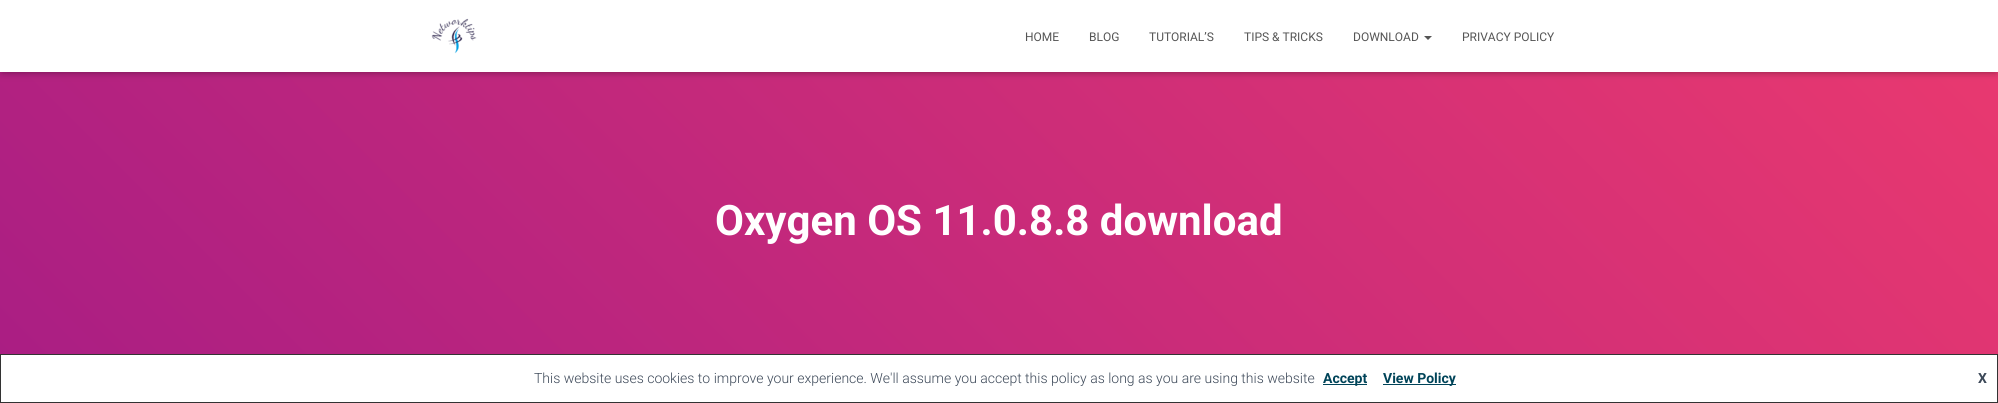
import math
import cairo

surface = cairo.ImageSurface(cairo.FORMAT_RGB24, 1998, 403)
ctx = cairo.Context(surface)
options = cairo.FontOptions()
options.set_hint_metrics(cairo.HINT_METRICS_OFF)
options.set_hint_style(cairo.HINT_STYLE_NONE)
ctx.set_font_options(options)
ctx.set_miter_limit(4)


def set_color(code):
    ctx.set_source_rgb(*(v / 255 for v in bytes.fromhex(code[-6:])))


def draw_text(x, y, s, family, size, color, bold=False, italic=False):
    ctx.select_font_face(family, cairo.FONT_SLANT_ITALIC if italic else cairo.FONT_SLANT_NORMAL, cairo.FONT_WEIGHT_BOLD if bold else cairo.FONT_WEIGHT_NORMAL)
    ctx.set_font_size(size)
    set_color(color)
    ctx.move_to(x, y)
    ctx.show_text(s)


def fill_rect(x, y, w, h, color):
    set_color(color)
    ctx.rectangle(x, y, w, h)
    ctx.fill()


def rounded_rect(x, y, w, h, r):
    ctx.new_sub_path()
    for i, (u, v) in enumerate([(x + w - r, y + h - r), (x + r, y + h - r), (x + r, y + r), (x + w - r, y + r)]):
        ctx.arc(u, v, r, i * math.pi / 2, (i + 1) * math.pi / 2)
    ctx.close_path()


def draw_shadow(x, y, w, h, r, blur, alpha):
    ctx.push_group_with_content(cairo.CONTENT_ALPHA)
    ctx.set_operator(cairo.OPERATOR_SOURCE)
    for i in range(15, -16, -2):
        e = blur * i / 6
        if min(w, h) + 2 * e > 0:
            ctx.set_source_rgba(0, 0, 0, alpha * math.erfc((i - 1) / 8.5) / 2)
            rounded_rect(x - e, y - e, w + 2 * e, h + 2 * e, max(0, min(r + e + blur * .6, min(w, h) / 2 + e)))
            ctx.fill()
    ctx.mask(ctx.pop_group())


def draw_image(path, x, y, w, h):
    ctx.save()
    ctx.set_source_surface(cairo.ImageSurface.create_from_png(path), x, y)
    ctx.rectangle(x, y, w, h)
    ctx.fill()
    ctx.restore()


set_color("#ffffff")
ctx.paint()
gradient = cairo.LinearGradient(392, 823, 1606, -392)
gradient.add_color_stop_rgba(0, 0.659, 0.114, 0.518, 1)
gradient.add_color_stop_rgba(1, 0.918, 0.224, 0.435, 1)
ctx.set_source(gradient)
ctx.rectangle(0, 72, 1998, 282)
ctx.fill()
set_color("#000000")
draw_shadow(2, 6, 1994, 68, 0, 2.5, 0.1)
draw_shadow(0, 1, 1998, 72, 0, 5, 0.12)
draw_shadow(6, 7, 1986, 60, 0, 5, 0.42)
fill_rect(0, 0, 1998, 72, "#ffffff")
draw_image("assets/img1.png", 431, 18, 46, 36)
draw_text(1025, 41, "HOME", "Roboto", 12, "#555555")
draw_text(1089, 41, "BLOG", "Roboto", 12, "#555555")
draw_text(1149, 41, "TUTORIAL’S", "Roboto", 12, "#555555")
draw_text(1244, 41, "TIPS & TRICKS", "Roboto", 12, "#555555")
draw_text(1353, 41, "DOWNLOAD", "Roboto", 12, "#555555")
ctx.new_path()
ctx.move_to(1424, 36)
ctx.line_to(1432, 36)
ctx.line_to(1428, 40)
ctx.close_path()
ctx.fill()
draw_text(1462, 41, "PRIVACY POLICY", "Roboto", 12, "#555555")
draw_text(715, 235, "Oxygen OS 11.0.8.8 download", "Roboto", 42, "#ffffff", bold=True)
ctx.rectangle(0.5, 354.5, 1997, 48)
set_color("#333333")
ctx.set_line_width(1)
ctx.stroke()
draw_text(534, 383, "This website uses cookies to improve your experience. We'll assume you accept this policy as long as you are using this website", "Roboto Light", 14, "#3c4858")
fill_rect(1323, 384, 44, 1, "#004459")
draw_text(1323, 383, "Accept", "Roboto", 14, "#004459", bold=True)
fill_rect(1383, 384, 73, 1, "#004459")
draw_text(1383, 383, "View Policy", "Roboto", 14, "#004459", bold=True)
draw_text(1978, 383, "X", "Roboto", 14, "#3c4858", bold=True)
surface.write_to_png("output.png")
